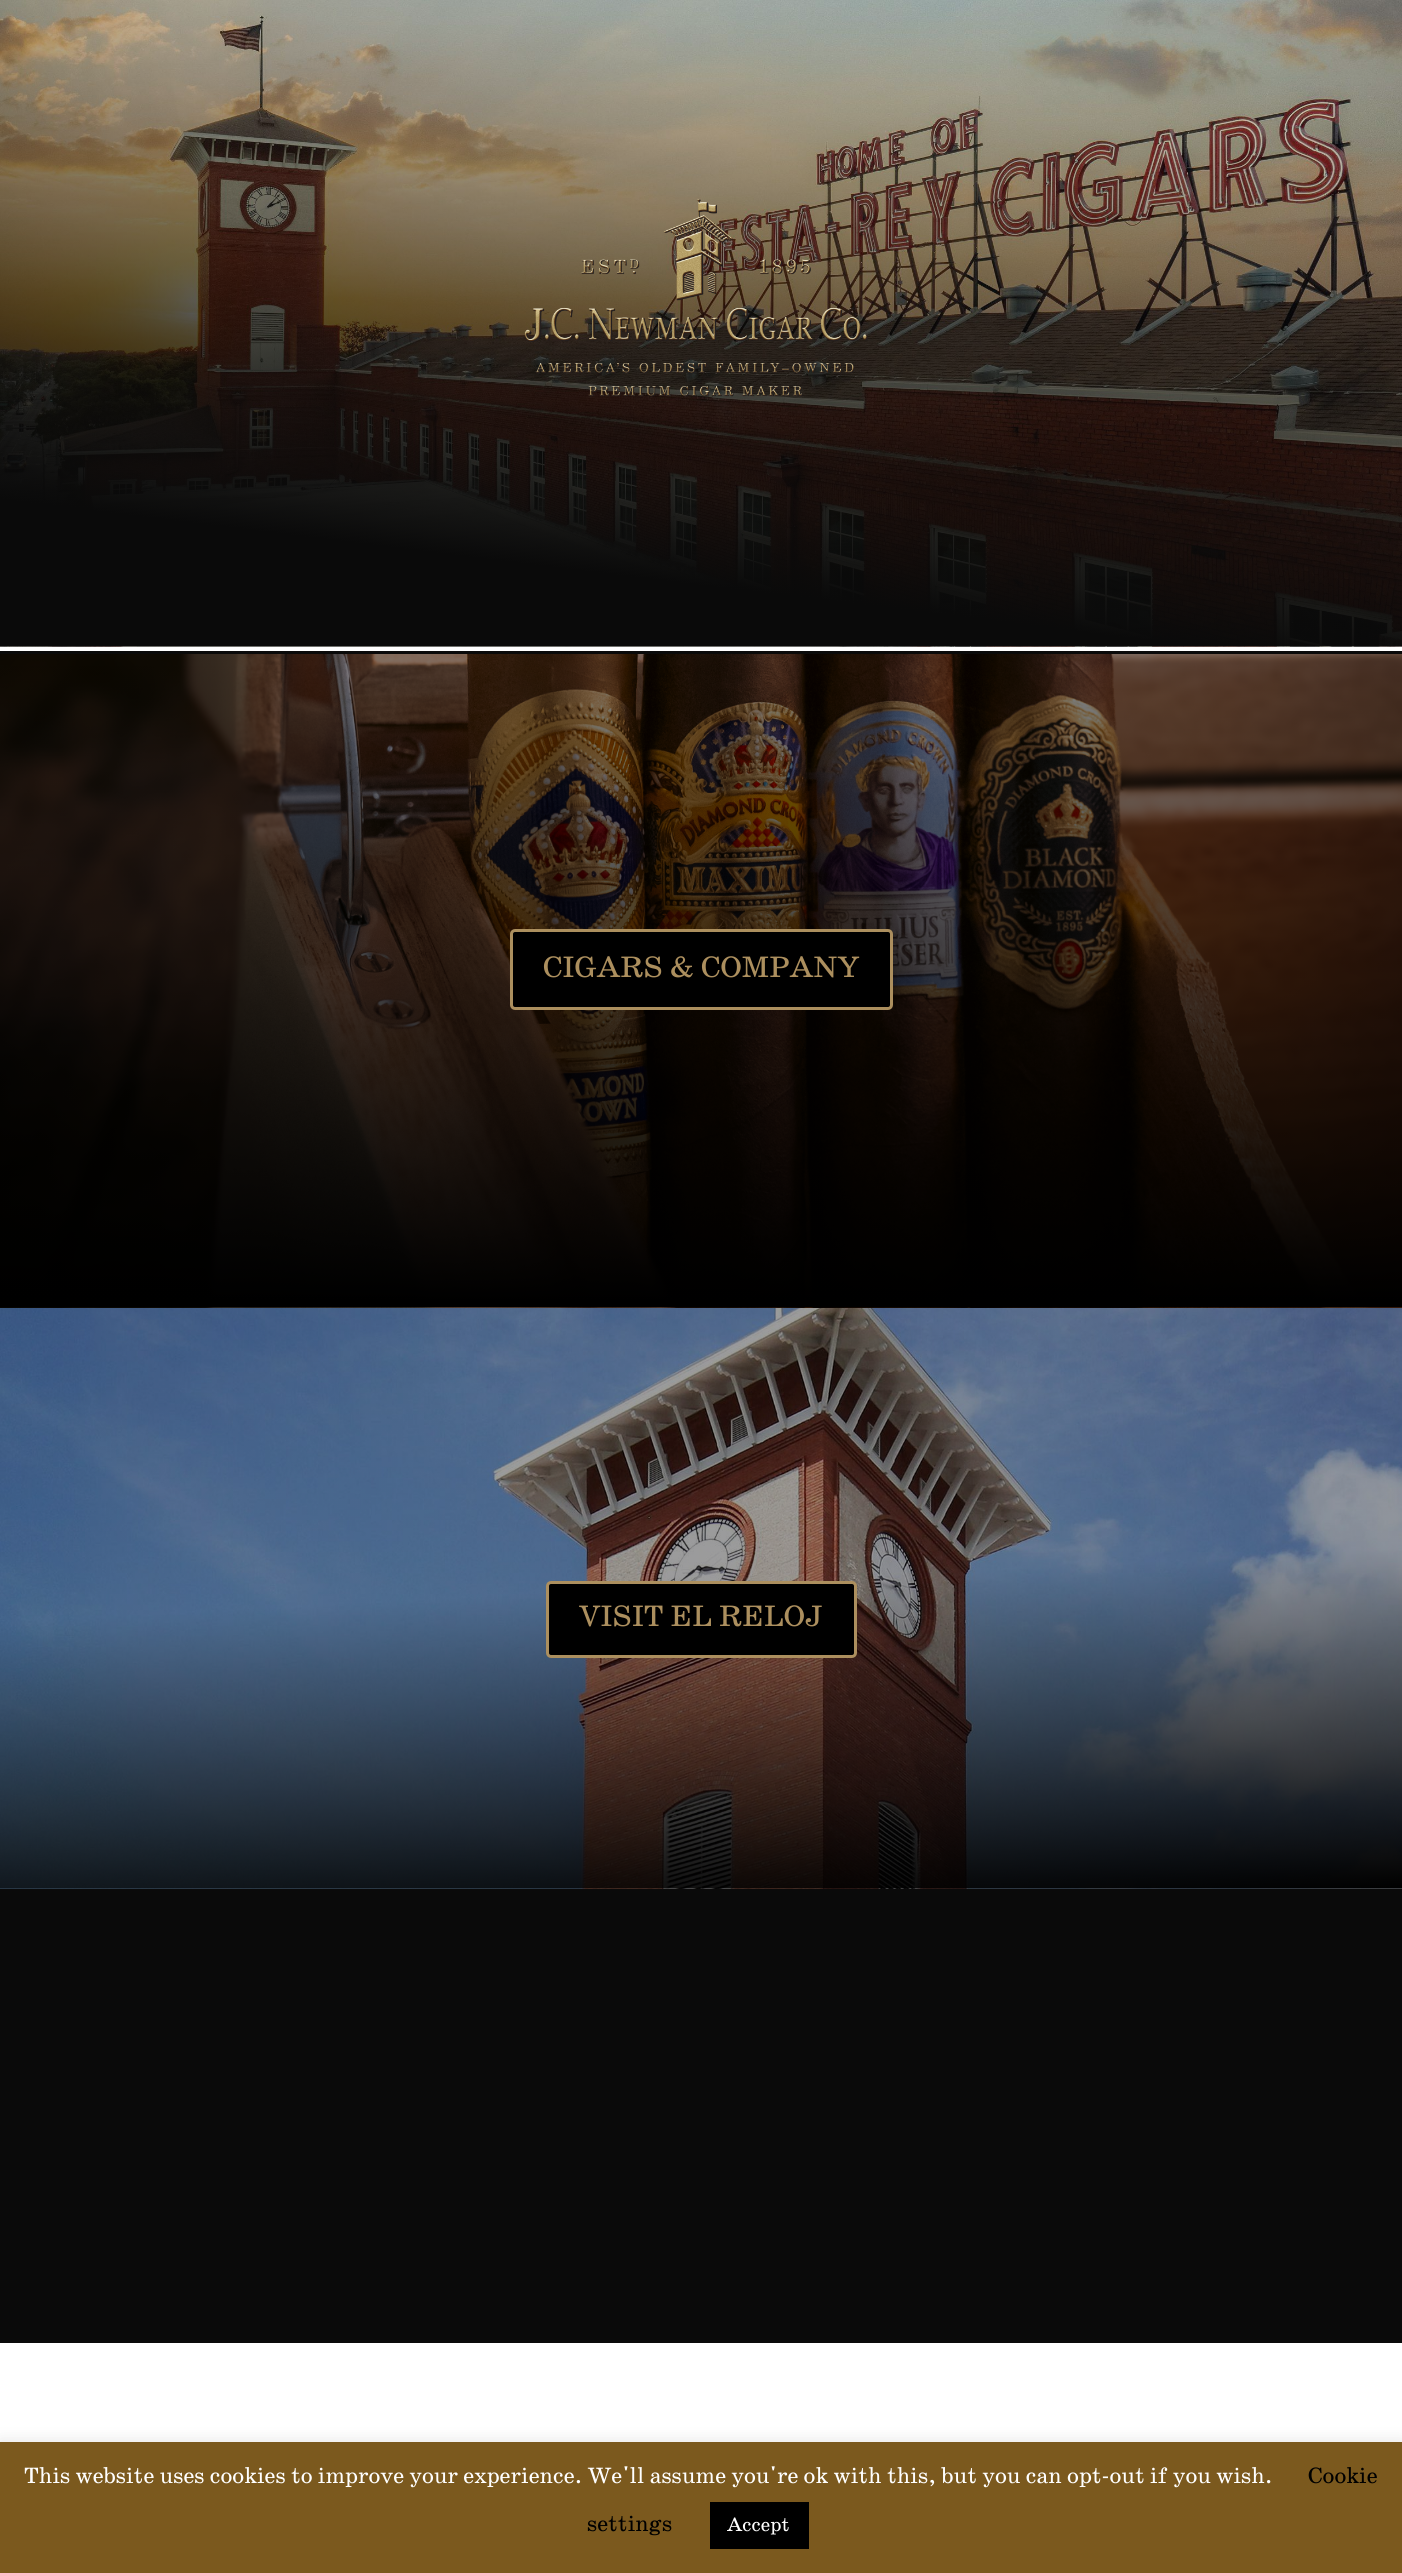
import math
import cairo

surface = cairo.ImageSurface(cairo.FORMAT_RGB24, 1402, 2573)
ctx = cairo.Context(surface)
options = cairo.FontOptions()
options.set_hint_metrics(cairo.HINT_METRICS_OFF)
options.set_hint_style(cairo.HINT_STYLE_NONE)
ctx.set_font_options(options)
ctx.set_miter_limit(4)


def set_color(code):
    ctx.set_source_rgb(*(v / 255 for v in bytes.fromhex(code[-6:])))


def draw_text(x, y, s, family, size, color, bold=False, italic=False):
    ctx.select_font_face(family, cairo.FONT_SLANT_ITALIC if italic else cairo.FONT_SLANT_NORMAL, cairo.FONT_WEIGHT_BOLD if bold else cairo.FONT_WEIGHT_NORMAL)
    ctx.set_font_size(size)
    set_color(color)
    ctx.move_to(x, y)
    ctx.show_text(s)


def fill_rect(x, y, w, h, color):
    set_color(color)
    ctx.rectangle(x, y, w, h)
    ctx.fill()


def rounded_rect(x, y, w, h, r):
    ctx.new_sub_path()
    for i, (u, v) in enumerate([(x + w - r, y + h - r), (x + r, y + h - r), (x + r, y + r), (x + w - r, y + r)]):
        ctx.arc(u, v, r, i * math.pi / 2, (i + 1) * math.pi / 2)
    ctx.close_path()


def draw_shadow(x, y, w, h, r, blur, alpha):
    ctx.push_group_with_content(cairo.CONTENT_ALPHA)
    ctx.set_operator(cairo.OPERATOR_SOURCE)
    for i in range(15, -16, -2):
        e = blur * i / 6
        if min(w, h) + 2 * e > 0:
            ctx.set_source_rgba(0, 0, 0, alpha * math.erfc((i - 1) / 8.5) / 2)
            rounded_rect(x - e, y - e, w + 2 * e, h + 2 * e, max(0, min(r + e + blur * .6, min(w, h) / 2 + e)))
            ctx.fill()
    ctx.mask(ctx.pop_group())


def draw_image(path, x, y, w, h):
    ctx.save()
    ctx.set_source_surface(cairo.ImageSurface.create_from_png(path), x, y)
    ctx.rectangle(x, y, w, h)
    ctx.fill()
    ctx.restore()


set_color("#ffffff")
ctx.paint()
draw_image("assets/img1.png", 0, 0, 1402, 647)
draw_image("assets/img2.png", 524, 199, 344, 198)
fill_rect(0, 651, 1402, 1692, "#0a0a0a")
draw_image("assets/img3.png", 0, 654, 1402, 654)
set_color("#000000")
rounded_rect(511.5, 930.5, 380, 78, 3.5)
ctx.fill_preserve()
set_color("#ac8f5e")
ctx.set_line_width(3)
ctx.stroke()
draw_text(543, 977, "CIGARS & COMPANY", "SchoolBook", 30, "#ac8f5e")
draw_image("assets/img4.png", 0, 1308, 1402, 581)
set_color("#000000")
rounded_rect(547.5, 1582.5, 308, 74, 3.5)
ctx.fill_preserve()
set_color("#ac8f5e")
ctx.stroke()
draw_text(579, 1626, "VISIT EL RELOJ", "SchoolBook", 30, "#ac8f5e")
set_color("#acabab")
draw_shadow(0, 2441, 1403, 132, 0, 7.5, 0.3)
fill_rect(0, 2442, 1402, 131, "#7b591e")
draw_text(24, 2483, "This website uses cookies to improve your experience. We'll assume you're ok with this, but you can opt-out if you wish.", "SchoolBook", 22.5, "#ffffff")
draw_text(1308, 2483, "Cookie", "SchoolBook", 22.5, "#000000")
draw_text(587, 2531, "settings", "SchoolBook", 22.5, "#000000")
fill_rect(710, 2502, 99, 47, "#000000")
draw_text(727, 2531, "Accept", "SchoolBook", 19.5, "#ffffff")
surface.write_to_png("output.png")
